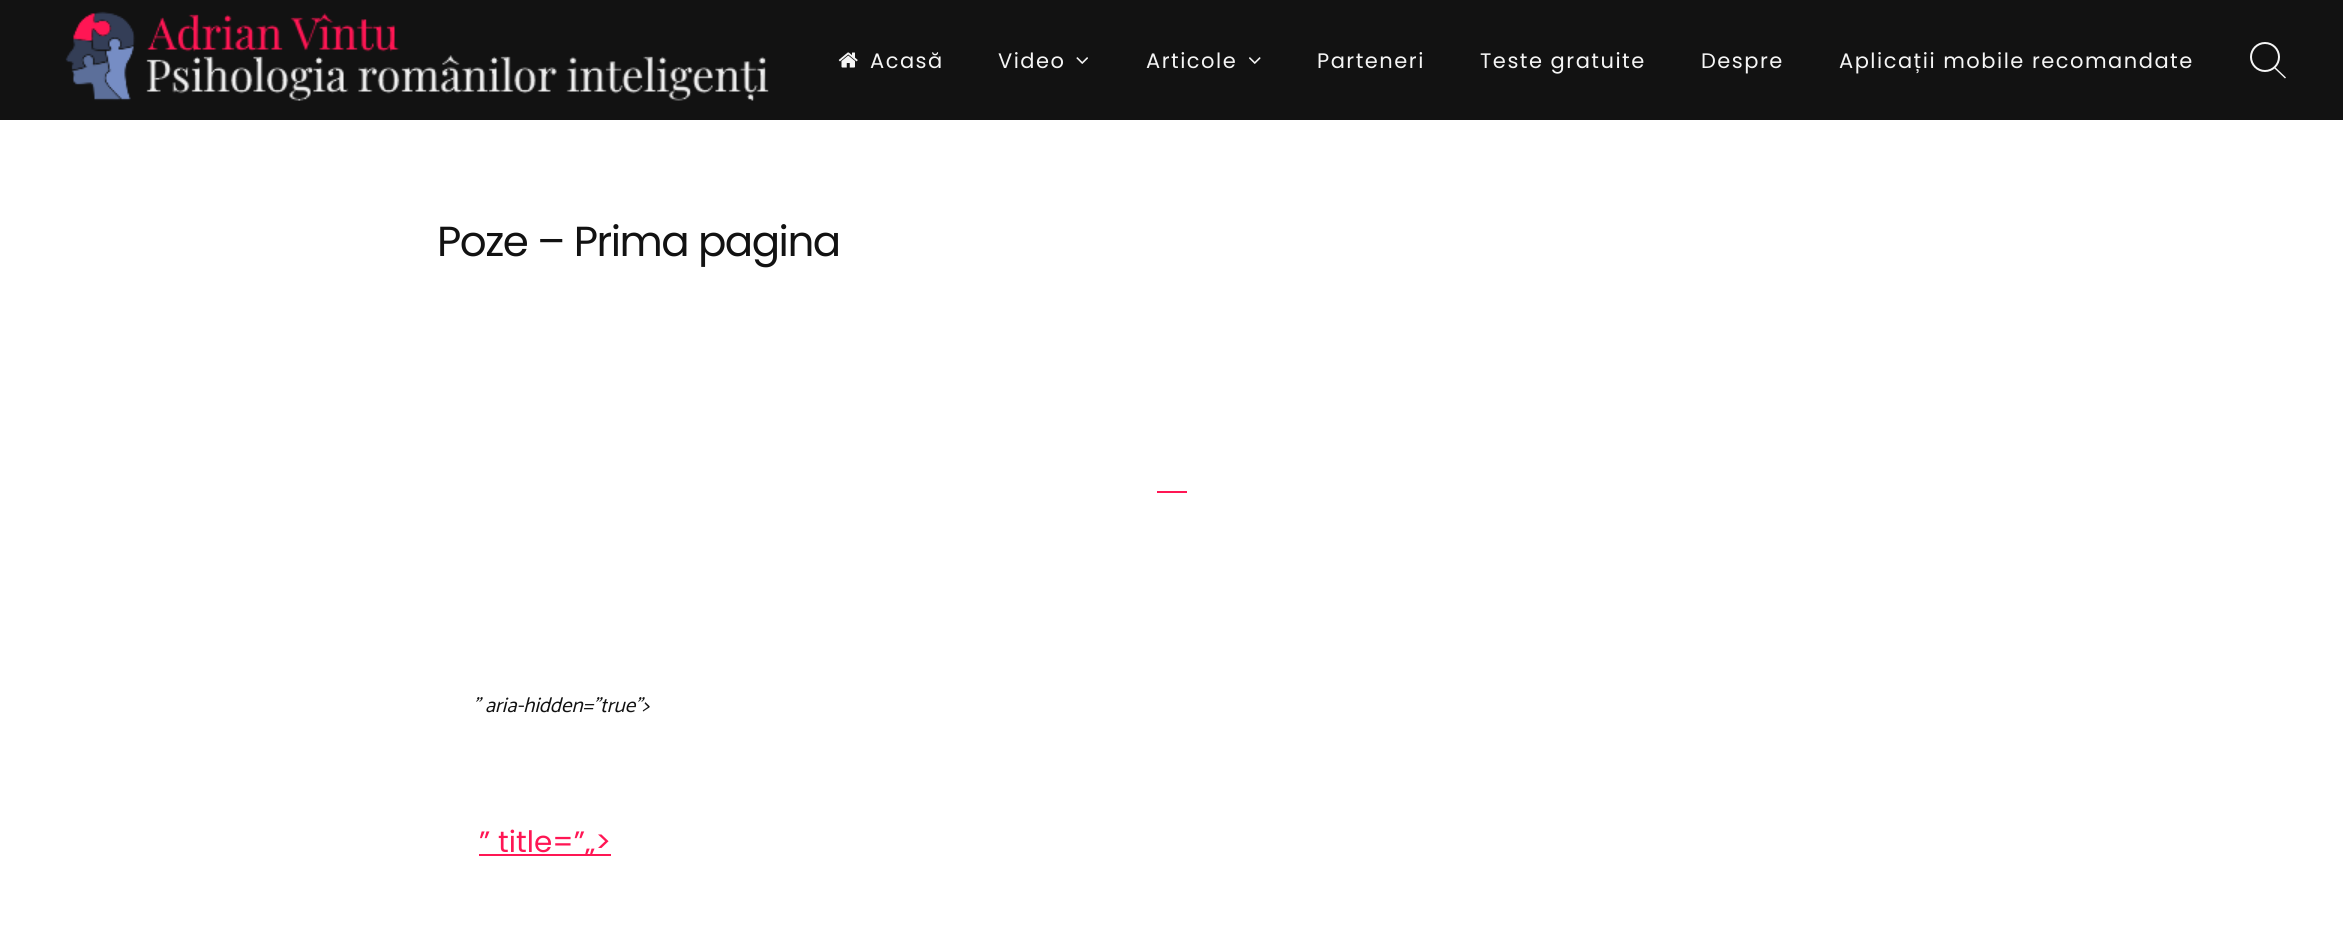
import math
import cairo

surface = cairo.ImageSurface(cairo.FORMAT_RGB24, 2343, 948)
ctx = cairo.Context(surface)
options = cairo.FontOptions()
options.set_hint_metrics(cairo.HINT_METRICS_OFF)
options.set_hint_style(cairo.HINT_STYLE_NONE)
ctx.set_font_options(options)
ctx.set_miter_limit(4)


def set_color(code):
    ctx.set_source_rgb(*(v / 255 for v in bytes.fromhex(code[-6:])))


def draw_text(x, y, s, family, size, color, bold=False, italic=False):
    ctx.select_font_face(family, cairo.FONT_SLANT_ITALIC if italic else cairo.FONT_SLANT_NORMAL, cairo.FONT_WEIGHT_BOLD if bold else cairo.FONT_WEIGHT_NORMAL)
    ctx.set_font_size(size)
    set_color(color)
    ctx.move_to(x, y)
    ctx.show_text(s)


def draw_spaced(x, y, s, letter, word):
    ctx.move_to(x, y)
    for ch in s:
        ctx.show_text(ch)
        ctx.rel_move_to(letter + word * (ch == ' '), 0)


def fill_rect(x, y, w, h, color):
    set_color(color)
    ctx.rectangle(x, y, w, h)
    ctx.fill()


def draw_image(path, x, y, w, h):
    ctx.save()
    ctx.set_source_surface(cairo.ImageSurface.create_from_png(path), x, y)
    ctx.rectangle(x, y, w, h)
    ctx.fill()
    ctx.restore()


set_color("#ffffff")
ctx.paint()
fill_rect(0, 0, 2343, 120, "#121212")
draw_image("assets/img1.png", 65, 11, 704, 90)
draw_image("assets/img2.png", 838, 52, 20, 16)
ctx.select_font_face("Poppins")
ctx.set_font_size(21)
set_color("#f5f5f5")
draw_spaced(870, 68, "Acasă", 1.5, 0)
draw_spaced(998, 68, "Video", 1.5, 0)
draw_image("assets/img3.png", 1076, 57, 12, 7)
draw_spaced(1146, 68, "Articole", 1.5, 0)
draw_image("assets/img4.png", 1249, 57, 12, 7)
draw_spaced(1317, 68, "Parteneri", 1.5, 0)
draw_spaced(1480, 68, "Teste gratuite", 1.5, 0)
draw_spaced(1701, 68, "Despre", 1.5, 0)
draw_spaced(1839, 68, "Aplicații mobile recomandate", 1.5, 0)
ctx.new_path()
ctx.arc(2265, 57, 14, 0, 2 * math.pi)
ctx.stroke()
ctx.new_path()
ctx.move_to(2275, 67)
ctx.line_to(2286, 77.5)
ctx.line_to(2285, 78.5)
ctx.line_to(2274, 68)
ctx.close_path()
ctx.fill()
ctx.set_font_size(42)
set_color("#121212")
draw_spaced(437, 256, "Poze – Prima pagina", -1.5, 0)
fill_rect(1157, 491, 30, 2, "#ff1654")
draw_text(473, 712, "” aria-hidden=”true”>", "Catamaran", 21, "#121212", italic=True)
fill_rect(479, 854, 132, 2, "#ff1654")
draw_text(479, 852, "” title=”„>", "Poppins", 29.5, "#ff1654")
surface.write_to_png("output.png")
